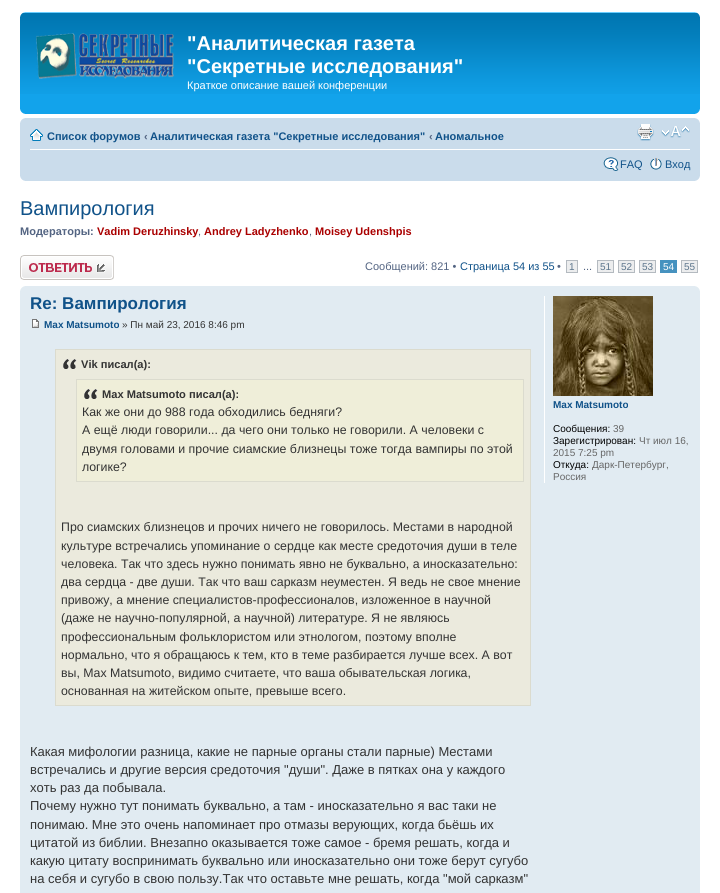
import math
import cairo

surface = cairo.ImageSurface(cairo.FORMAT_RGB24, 720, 893)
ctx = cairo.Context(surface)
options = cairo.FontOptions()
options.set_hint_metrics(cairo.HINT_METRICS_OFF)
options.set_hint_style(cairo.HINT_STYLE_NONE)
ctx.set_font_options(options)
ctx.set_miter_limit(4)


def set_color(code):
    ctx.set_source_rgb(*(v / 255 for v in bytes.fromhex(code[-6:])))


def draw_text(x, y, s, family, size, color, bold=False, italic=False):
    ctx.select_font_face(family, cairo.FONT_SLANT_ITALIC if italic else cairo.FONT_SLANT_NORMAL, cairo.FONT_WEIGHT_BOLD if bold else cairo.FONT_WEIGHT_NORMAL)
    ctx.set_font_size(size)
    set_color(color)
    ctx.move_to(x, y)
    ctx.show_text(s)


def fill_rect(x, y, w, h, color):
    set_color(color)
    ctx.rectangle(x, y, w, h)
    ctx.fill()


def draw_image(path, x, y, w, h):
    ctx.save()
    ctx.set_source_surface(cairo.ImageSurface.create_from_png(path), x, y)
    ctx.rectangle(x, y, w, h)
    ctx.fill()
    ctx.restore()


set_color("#ffffff")
ctx.paint()
fill_rect(20, 94, 680, 20, "#12a3eb")
draw_image("assets/img1.png", 20, 12, 680, 82)
draw_image("assets/img2.png", 20, 12, 5, 5)
draw_image("assets/img3.png", 695, 12, 5, 5)
draw_image("assets/img4.png", 36, 33, 138, 46)
draw_text(187, 50, "\"Аналитическая газета", "Liberation Sans", 20, "#ffffff", bold=True)
draw_text(187, 73, "\"Секретные исследования\"", "Liberation Sans", 20, "#ffffff", bold=True)
draw_text(187, 89, "Краткое описание вашей конференции", "Liberation Sans", 11, "#ffffff")
draw_image("assets/img5.png", 20, 109, 5, 5)
draw_image("assets/img6.png", 695, 109, 5, 5)
fill_rect(20, 118, 680, 63, "#cadceb")
draw_image("assets/img7.png", 20, 118, 5, 5)
draw_image("assets/img8.png", 695, 118, 5, 5)
fill_rect(30, 149, 660, 1, "#ffffff")
draw_image("assets/img9.png", 30, 129, 13, 12)
draw_text(47, 140, "Список форумов", "Liberation Sans", 11, "#105289", bold=True)
draw_text(144, 140, "‹", "Liberation Sans", 11, "#536482", bold=True)
draw_text(150, 140, "Аналитическая газета \"Секретные исследования\"", "Liberation Sans", 11, "#105289", bold=True)
draw_text(429, 140, "‹", "Liberation Sans", 11, "#536482", bold=True)
draw_text(435, 140, "Аномальное", "Liberation Sans", 11, "#105289", bold=True)
draw_image("assets/img10.png", 637, 124, 17, 17)
draw_image("assets/img11.png", 661, 126, 29, 12)
draw_image("assets/img12.png", 603, 157, 16, 14)
draw_text(620, 168, "FAQ", "Liberation Sans", 11, "#105289")
draw_image("assets/img13.png", 650, 158, 12, 12)
draw_text(665, 168, "Вход", "Liberation Sans", 11, "#105289")
draw_image("assets/img14.png", 20, 176, 5, 5)
draw_image("assets/img15.png", 695, 176, 5, 5)
draw_text(20, 215, "Вампирология", "Liberation Sans", 20, "#105289")
draw_text(20, 235, "Модераторы:", "Liberation Sans", 11, "#536482", bold=True)
draw_text(97, 235, "Vadim Deruzhinsky", "Liberation Sans", 11, "#aa0000", bold=True)
draw_text(198, 235, ",", "Liberation Sans", 11, "#536482")
draw_text(204, 235, "Andrey Ladyzhenko", "Liberation Sans", 11, "#aa0000", bold=True)
draw_text(309, 235, ",", "Liberation Sans", 11, "#536482")
draw_text(315, 235, "Moisey Udenshpis", "Liberation Sans", 11, "#aa0000", bold=True)
draw_image("assets/img16.png", 20, 255, 94, 25)
draw_text(365, 270, "Сообщений: 821 •", "Liberation Sans", 11, "#536482")
draw_text(460, 270, "Страница 54 из 55", "Liberation Sans", 11, "#105289")
draw_text(557, 270, "•", "Liberation Sans", 11, "#536482")
set_color("#ecedee")
ctx.rectangle(566.5, 260.5, 11, 12)
ctx.fill_preserve()
set_color("#b4bac0")
ctx.set_line_width(1)
ctx.stroke()
draw_text(569, 270, "1", "Liberation Sans", 10, "#5c758c")
set_color("#ecedee")
ctx.rectangle(597.5, 260.5, 16, 12)
ctx.fill_preserve()
set_color("#b4bac0")
ctx.stroke()
draw_text(600, 270, "51", "Liberation Sans", 10, "#5c758c")
set_color("#ecedee")
ctx.rectangle(618.5, 260.5, 16, 12)
ctx.fill_preserve()
set_color("#b4bac0")
ctx.stroke()
draw_text(621, 270, "52", "Liberation Sans", 10, "#5c758c")
set_color("#ecedee")
ctx.rectangle(639.5, 260.5, 16, 12)
ctx.fill_preserve()
set_color("#b4bac0")
ctx.stroke()
draw_text(642, 270, "53", "Liberation Sans", 10, "#5c758c")
fill_rect(660, 260, 17, 13, "#4692bf")
draw_text(663, 270, "54", "Liberation Sans", 10, "#ffffff")
set_color("#ecedee")
ctx.rectangle(681.5, 260.5, 16, 12)
ctx.fill_preserve()
set_color("#b4bac0")
ctx.stroke()
draw_text(684, 270, "55", "Liberation Sans", 10, "#5c758c")
draw_text(583, 270, "...", "Liberation Sans", 11, "#536482")
fill_rect(20, 286, 680, 607, "#e1ebf2")
draw_image("assets/img17.png", 20, 286, 5, 5)
draw_image("assets/img18.png", 695, 286, 5, 5)
draw_text(30, 309, "Re: Вампирология", "Liberation Sans", 17, "#105289", bold=True)
draw_image("assets/img19.png", 32, 319, 7, 9)
draw_text(44, 328, "Max Matsumoto", "Liberation Sans", 10, "#105289", bold=True)
draw_text(122, 328, "» Пн май 23, 2016 8:46 pm", "Liberation Sans", 10, "#333333")
fill_rect(56, 350, 474, 355, "#ebeadd")
draw_image("assets/img20.png", 63, 359, 14, 10)
ctx.rectangle(55.5, 349.5, 475, 356)
set_color("#dbdbce")
ctx.stroke()
draw_text(81, 368, "Vik писал(а):", "Liberation Sans", 11.1, "#333333", bold=True)
fill_rect(77, 380, 446, 101, "#efeed9")
draw_image("assets/img21.png", 84, 389, 14, 10)
ctx.rectangle(76.5, 379.5, 447, 102)
set_color("#dbdbce")
ctx.stroke()
draw_text(102, 398, "Max Matsumoto писал(а):", "Liberation Sans", 11.1, "#333333", bold=True)
draw_text(82, 416, "Как же они до 988 года обходились бедняги?", "Liberation Sans", 12.35, "#333333")
draw_text(82, 434, "А ещё люди говорили... да чего они только не говорили. А человеки с", "Liberation Sans", 12.35, "#333333")
draw_text(82, 453, "двумя головами и прочие сиамские близнецы тоже тогда вампиры по этой", "Liberation Sans", 12.35, "#333333")
draw_text(82, 471, "логике?", "Liberation Sans", 12.35, "#333333")
draw_text(61, 531, "Про сиамских близнецов и прочих ничего не говорилось. Местами в народной", "Liberation Sans", 12.35, "#333333")
draw_text(61, 550, "культуре встречались упоминание о сердце как месте средоточия души в теле", "Liberation Sans", 12.35, "#333333")
draw_text(61, 568, "человека. Так что здесь нужно понимать явно не буквально, а иносказательно:", "Liberation Sans", 12.35, "#333333")
draw_text(61, 586, "два сердца - две души. Так что ваш сарказм неуместен. Я ведь не свое мнение", "Liberation Sans", 12.35, "#333333")
draw_text(61, 604, "привожу, а мнение специалистов-профессионалов, изложенное в научной", "Liberation Sans", 12.35, "#333333")
draw_text(61, 622, "(даже не научно-популярной, а научной) литературе. Я не являюсь", "Liberation Sans", 12.35, "#333333")
draw_text(61, 641, "профессиональным фольклористом или этнологом, поэтому вполне", "Liberation Sans", 12.35, "#333333")
draw_text(61, 659, "нормально, что я обращаюсь к тем, кто в теме разбирается лучше всех. А вот", "Liberation Sans", 12.35, "#333333")
draw_text(61, 677, "вы, Max Matsumoto, видимо считаете, что ваша обывательская логика,", "Liberation Sans", 12.35, "#333333")
draw_text(61, 695, "основанная на житейском опыте, превыше всего.", "Liberation Sans", 12.35, "#333333")
draw_text(30, 756, "Какая мифологии разница, какие не парные органы стали парные) Местами", "Liberation Sans", 13, "#333333")
draw_text(30, 774, "встречались и другие версия средоточия \"души\". Даже в пятках она у каждого", "Liberation Sans", 13, "#333333")
draw_text(30, 792, "хоть раз да побывала.", "Liberation Sans", 13, "#333333")
draw_text(30, 810, "Почему нужно тут понимать буквально, а там - иносказательно я вас таки не", "Liberation Sans", 13, "#333333")
draw_text(30, 829, "понимаю. Мне это очень напоминает про отмазы верующих, когда бьёшь их", "Liberation Sans", 13, "#333333")
draw_text(30, 847, "цитатой из библии. Внезапно оказывается тоже самое - бремя решать, когда и", "Liberation Sans", 13, "#333333")
draw_text(30, 865, "какую цитату воспринимать буквально или иносказательно они тоже берут сугубо", "Liberation Sans", 13, "#333333")
draw_text(30, 883, "на себя и сугубо в свою пользу.Так что оставьте мне решать, когда \"мой сарказм\"", "Liberation Sans", 13, "#333333")
fill_rect(544, 296, 1, 187, "#ffffff")
draw_image("assets/img22.png", 553, 296, 100, 100)
draw_text(553, 408, "Max Matsumoto", "Liberation Sans", 10, "#105289", bold=True)
draw_text(553, 432, "Сообщения:", "Liberation Sans", 10, "#000000")
draw_text(613, 432, "39", "Liberation Sans", 10, "#666666")
draw_text(553, 444, "Зарегистрирован:", "Liberation Sans", 10, "#000000")
draw_text(639, 444, "Чт июл 16,", "Liberation Sans", 10, "#666666")
draw_text(553, 456, "2015 7:25 pm", "Liberation Sans", 10, "#666666")
draw_text(553, 468, "Откуда:", "Liberation Sans", 10, "#000000")
draw_text(592, 468, "Дарк-Петербург,", "Liberation Sans", 10, "#666666")
draw_text(553, 480, "Россия", "Liberation Sans", 10, "#666666")
surface.write_to_png("output.png")
